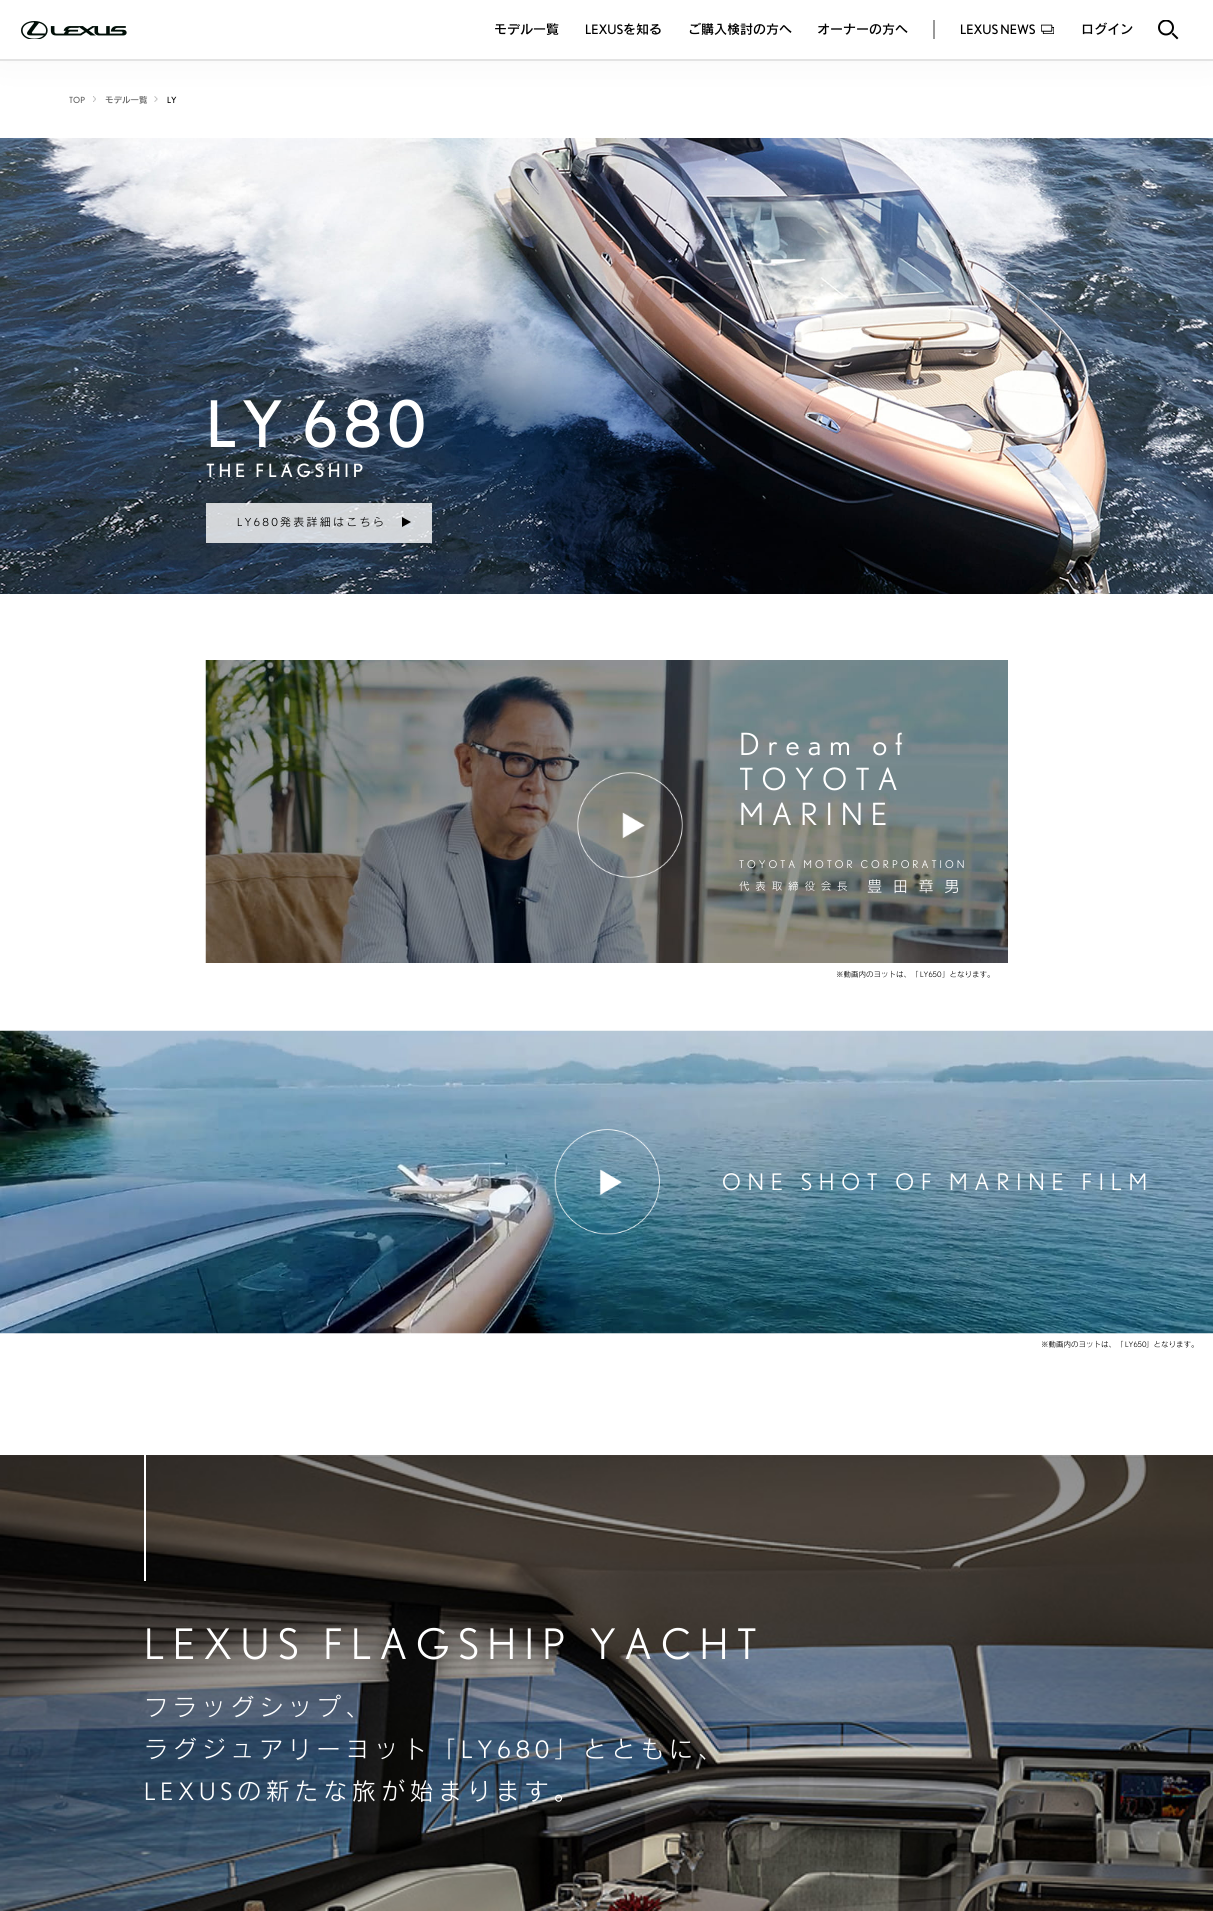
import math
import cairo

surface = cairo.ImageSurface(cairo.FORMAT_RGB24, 1213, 1911)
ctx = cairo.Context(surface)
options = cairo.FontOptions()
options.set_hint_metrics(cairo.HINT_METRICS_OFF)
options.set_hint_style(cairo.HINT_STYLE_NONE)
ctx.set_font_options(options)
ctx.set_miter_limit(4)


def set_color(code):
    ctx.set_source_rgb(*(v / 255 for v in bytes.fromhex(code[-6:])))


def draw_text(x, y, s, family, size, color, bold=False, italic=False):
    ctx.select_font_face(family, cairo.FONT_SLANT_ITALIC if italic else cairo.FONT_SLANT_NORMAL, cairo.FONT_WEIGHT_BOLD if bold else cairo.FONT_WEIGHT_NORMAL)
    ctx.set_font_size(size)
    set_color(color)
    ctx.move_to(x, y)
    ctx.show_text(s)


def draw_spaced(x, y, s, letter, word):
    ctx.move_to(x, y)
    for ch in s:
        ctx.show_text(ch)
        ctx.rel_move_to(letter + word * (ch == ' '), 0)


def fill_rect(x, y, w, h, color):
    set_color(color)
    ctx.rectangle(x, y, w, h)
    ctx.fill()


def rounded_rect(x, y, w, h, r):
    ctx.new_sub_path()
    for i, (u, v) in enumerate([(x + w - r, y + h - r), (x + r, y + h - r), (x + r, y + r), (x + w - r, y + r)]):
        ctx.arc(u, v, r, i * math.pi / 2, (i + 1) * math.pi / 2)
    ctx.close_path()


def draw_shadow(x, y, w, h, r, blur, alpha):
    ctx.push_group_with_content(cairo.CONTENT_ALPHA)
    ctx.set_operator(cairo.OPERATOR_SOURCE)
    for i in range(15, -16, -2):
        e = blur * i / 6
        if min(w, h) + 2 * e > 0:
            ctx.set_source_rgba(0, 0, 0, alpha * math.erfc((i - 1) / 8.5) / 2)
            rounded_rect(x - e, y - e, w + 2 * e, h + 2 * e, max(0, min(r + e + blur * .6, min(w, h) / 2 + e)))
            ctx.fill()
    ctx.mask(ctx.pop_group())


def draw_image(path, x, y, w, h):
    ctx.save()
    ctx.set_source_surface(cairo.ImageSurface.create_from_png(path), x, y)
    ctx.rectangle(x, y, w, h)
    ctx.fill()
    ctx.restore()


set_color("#ffffff")
ctx.paint()
draw_image("assets/img3.png", 93, 96, 3, 6)
draw_image("assets/img4.png", 154, 96, 4, 6)
set_color("#999999")
draw_shadow(0, -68, 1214, 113, 0, 22.5, 0.2)
fill_rect(0, 0, 1213, 59, "#ffffff")
fill_rect(0, 59, 1213, 2, "#e3e3e3")
draw_image("assets/img1.png", 21, 21, 106, 18)
draw_text(494, 34, "モデル一覧", "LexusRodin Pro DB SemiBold", 13, "#000000")
draw_text(585, 34, "LEXUS", "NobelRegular", 13, "#000000")
draw_text(623, 34, "を知る", "LexusRodin Pro DB SemiBold", 13, "#000000")
draw_text(688, 34, "ご購入検討の方へ", "LexusRodin Pro DB SemiBold", 13, "#000000")
draw_text(817, 34, "オーナーの方へ", "LexusRodin Pro DB SemiBold", 13, "#000000")
fill_rect(933, 20, 2, 19, "#999999")
draw_text(960, 34, "LEXUS NEWS", "NobelRegular", 13, "#000000")
draw_image("assets/img2.png", 1041, 24, 13, 10)
draw_text(1081, 34, "ログイン", "LexusRodin Pro DB SemiBold", 13, "#000000")
ctx.save()
ctx.rectangle(1158, 20, 21, 21)
ctx.clip()
ctx.arc(1166, 27.5, 7, 0, 2 * math.pi)
ctx.stroke()
ctx.restore()
ctx.new_path()
ctx.move_to(1173, 34)
ctx.line_to(1177, 38)
ctx.set_line_cap(cairo.LINE_CAP_SQUARE)
ctx.stroke()
draw_text(69, 103, "TOP", "NobelRegular", 8.5, "#646464")
draw_text(105, 103, "モデル一覧", "LexusRodin Pro DB SemiBold", 8.5, "#646464")
draw_text(167, 103, "LY", "NobelRegular", 8.5, "#000000")
draw_image("assets/img5.png", 0, 138, 1213, 456)
ctx.set_font_size(64)
set_color("#ffffff")
draw_spaced(206, 447, "LY 680", 5, 0)
ctx.set_font_size(18.25)
draw_spaced(206, 477, "THE FLAGSHIP", 3.75, 0)
ctx.set_source_rgba(1, 1, 1, 0.8)
ctx.rectangle(206, 503, 226, 40)
ctx.fill()
ctx.select_font_face("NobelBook")
ctx.set_font_size(11)
set_color("#000000")
draw_spaced(237, 526, "LY680", 2.25, 0)
ctx.select_font_face("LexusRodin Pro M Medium")
draw_spaced(280, 526, "発表詳細はこちら", 2.25, 0)
ctx.set_fill_rule(cairo.FILL_RULE_EVEN_ODD)
ctx.new_path()
ctx.move_to(411, 522)
ctx.line_to(402, 527)
ctx.line_to(402, 517)
ctx.close_path()
ctx.fill()
draw_image("assets/img6.png", 205, 660, 803, 303)
draw_image("assets/img7.png", 577, 772, 106, 106)
ctx.select_font_face("NobelBook")
ctx.set_font_size(30.5)
set_color("#ffffff")
draw_spaced(739, 755, "Dream of", 8, 0)
draw_spaced(739, 790, "TOYOTA", 8, 0)
draw_spaced(739, 825, "MARINE", 8, 0)
ctx.set_font_size(10.6)
draw_spaced(739, 868, "TOYOTA MOTOR CORPORATION", 3, 0)
ctx.select_font_face("LexusRodin Pro M Medium")
draw_spaced(739, 890, "代表取締役会長", 5.75, 0)
ctx.set_font_size(15.25)
draw_spaced(867, 892, "豊田章男", 10.5, 0)
draw_text(836, 977, "※動画内のヨットは、「", "LexusRodin Pro M Medium", 7.5, "#000000")
draw_text(920, 977, "LY650", "NobelBook", 7.5, "#000000")
draw_text(942, 977, "」となります。", "LexusRodin Pro M Medium", 7.5, "#000000")
draw_image("assets/img8.png", 0, 1030, 1213, 304)
draw_image("assets/img9.png", 554, 1129, 106, 106)
ctx.select_font_face("NobelBook")
ctx.set_font_size(22.75)
set_color("#ffffff")
draw_spaced(722, 1190, "ONE SHOT OF MARINE FILM", 6.8, 0)
draw_text(1041, 1347, "※動画内のヨットは、「", "LexusRodin Pro M Medium", 7.5, "#000000")
draw_text(1125, 1347, "LY650", "NobelBook", 7.5, "#000000")
draw_text(1146, 1347, "」となります。", "LexusRodin Pro M Medium", 7.5, "#000000")
draw_image("assets/img10.png", 0, 1455, 1213, 456)
fill_rect(144, 1455, 2, 126, "#ffffff")
ctx.select_font_face("NobelBook")
ctx.set_font_size(42)
draw_spaced(144, 1659, "LEXUS FLAGSHIP YACHT", 8.4, 0)
ctx.select_font_face("LexusRodin Pro M Medium")
ctx.set_font_size(24)
draw_spaced(144, 1716, "フラッグシップ、", 4.75, 0)
draw_spaced(144, 1758, "ラグジュアリーヨット「", 4.75, 0)
ctx.select_font_face("NobelBook")
draw_spaced(461, 1758, "LY680", 4.75, 0)
ctx.select_font_face("LexusRodin Pro M Medium")
draw_spaced(554, 1758, "」とともに、", 4.75, 0)
ctx.select_font_face("NobelBook")
draw_spaced(144, 1800, "LEXUS", 4.75, 0)
ctx.select_font_face("LexusRodin Pro M Medium")
draw_spaced(237, 1800, "の新たな旅が始まります。", 4.75, 0)
surface.write_to_png("output.png")
